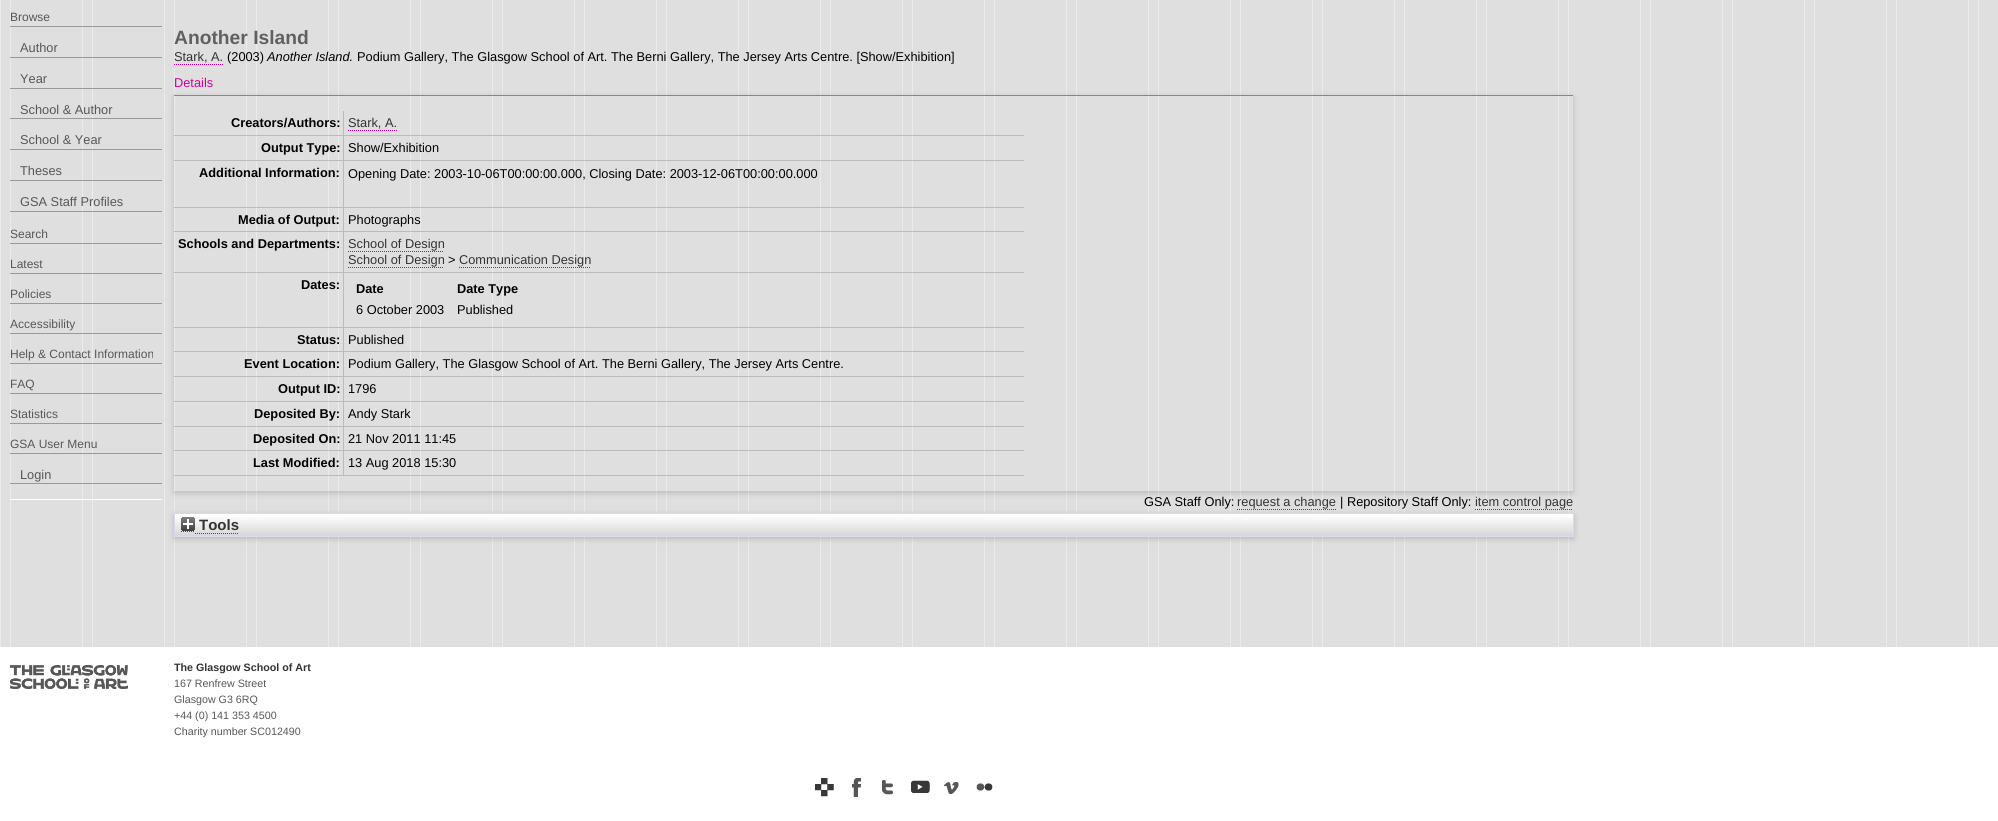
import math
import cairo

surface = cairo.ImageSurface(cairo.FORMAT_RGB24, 1998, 821)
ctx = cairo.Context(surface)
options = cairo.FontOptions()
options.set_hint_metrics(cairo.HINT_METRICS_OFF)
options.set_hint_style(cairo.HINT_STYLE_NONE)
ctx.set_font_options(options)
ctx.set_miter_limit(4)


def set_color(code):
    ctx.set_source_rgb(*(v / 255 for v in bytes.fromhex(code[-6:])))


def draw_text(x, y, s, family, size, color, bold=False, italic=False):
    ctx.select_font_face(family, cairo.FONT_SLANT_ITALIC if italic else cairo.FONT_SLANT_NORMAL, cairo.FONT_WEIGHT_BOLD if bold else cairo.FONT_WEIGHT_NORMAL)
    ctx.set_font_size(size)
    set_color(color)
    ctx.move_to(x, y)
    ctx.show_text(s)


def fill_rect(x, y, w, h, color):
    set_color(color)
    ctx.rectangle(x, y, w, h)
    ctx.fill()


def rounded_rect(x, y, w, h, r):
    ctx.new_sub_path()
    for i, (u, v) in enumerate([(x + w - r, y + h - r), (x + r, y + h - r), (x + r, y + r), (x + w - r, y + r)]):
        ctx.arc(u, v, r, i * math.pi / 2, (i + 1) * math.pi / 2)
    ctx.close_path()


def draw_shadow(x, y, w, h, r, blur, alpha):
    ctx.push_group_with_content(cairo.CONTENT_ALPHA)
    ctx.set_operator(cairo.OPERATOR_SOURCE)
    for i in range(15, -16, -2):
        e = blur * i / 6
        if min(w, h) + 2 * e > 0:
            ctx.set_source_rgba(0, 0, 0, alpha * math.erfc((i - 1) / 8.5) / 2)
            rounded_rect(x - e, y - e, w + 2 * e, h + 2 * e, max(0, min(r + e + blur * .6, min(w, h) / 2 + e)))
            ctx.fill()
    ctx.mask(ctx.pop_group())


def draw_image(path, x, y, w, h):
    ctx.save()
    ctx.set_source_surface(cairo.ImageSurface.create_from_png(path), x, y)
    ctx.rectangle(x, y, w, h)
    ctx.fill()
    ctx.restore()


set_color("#ffffff")
ctx.paint()
draw_image("assets/img1.png", 0, 0, 1998, 647)
fill_rect(10, 499, 152, 1, "#ffffff")
fill_rect(10, 26, 152, 1, "#999999")
draw_text(10, 21, "Browse", "Liberation Sans", 12, "#575757")
fill_rect(10, 57, 152, 1, "#999999")
draw_text(20, 52, "Author", "Liberation Sans", 12.8, "#575757")
fill_rect(10, 88, 152, 1, "#999999")
draw_text(20, 83, "Year", "Liberation Sans", 12.8, "#575757")
fill_rect(10, 118, 152, 1, "#999999")
draw_text(20, 114, "School & Author", "Liberation Sans", 12.8, "#575757")
fill_rect(10, 149, 152, 1, "#999999")
draw_text(20, 144, "School & Year", "Liberation Sans", 12.8, "#575757")
fill_rect(10, 180, 152, 1, "#999999")
draw_text(20, 175, "Theses", "Liberation Sans", 12.8, "#575757")
fill_rect(10, 211, 152, 1, "#999999")
draw_text(20, 206, "GSA Staff Profiles", "Liberation Sans", 12.8, "#575757")
fill_rect(10, 243, 152, 1, "#999999")
draw_text(10, 238, "Search", "Liberation Sans", 12, "#575757")
fill_rect(10, 273, 152, 1, "#999999")
draw_text(10, 268, "Latest", "Liberation Sans", 12, "#575757")
fill_rect(10, 303, 152, 1, "#999999")
draw_text(10, 298, "Policies", "Liberation Sans", 12, "#575757")
fill_rect(10, 333, 152, 1, "#999999")
draw_text(10, 328, "Accessibility", "Liberation Sans", 12, "#575757")
fill_rect(10, 363, 152, 1, "#999999")
draw_text(10, 358, "Help & Contact Information", "Liberation Sans", 12, "#575757")
fill_rect(10, 393, 152, 1, "#999999")
draw_text(10, 388, "FAQ", "Liberation Sans", 12, "#575757")
fill_rect(10, 423, 152, 1, "#999999")
draw_text(10, 418, "Statistics", "Liberation Sans", 12, "#575757")
fill_rect(10, 453, 152, 1, "#999999")
draw_text(10, 448, "GSA User Menu", "Liberation Sans", 12, "#575757")
fill_rect(10, 483, 152, 1, "#999999")
draw_text(20, 479, "Login", "Liberation Sans", 12.8, "#575757")
draw_text(174, 44, "Another Island", "Liberation Sans", 19.25, "#606060", bold=True)
draw_text(174, 61, "Stark, A.", "Liberation Sans", 12.8, "#333333")
ctx.new_path()
ctx.move_to(174, 64.5)
ctx.line_to(223, 64.5)
set_color("#cc0099")
ctx.set_line_width(1)
ctx.set_dash([1, 1])
ctx.stroke()
draw_text(227, 61, "(2003)", "Liberation Sans", 12.8, "#000000")
draw_text(267, 61, "Another Island.", "Liberation Sans", 12.8, "#000000", italic=True)
draw_text(357, 61, "Podium Gallery, The Glasgow School of Art. The Berni Gallery, The Jersey Arts Centre. [Show/Exhibition]", "Liberation Sans", 12.8, "#000000")
ctx.save()
ctx.set_fill_rule(cairo.FILL_RULE_EVEN_ODD)
ctx.new_path()
ctx.move_to(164, 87)
ctx.line_to(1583, 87)
ctx.line_to(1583, 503)
ctx.line_to(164, 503)
ctx.close_path()
ctx.move_to(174, 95)
ctx.line_to(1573, 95)
ctx.line_to(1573, 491)
ctx.line_to(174, 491)
ctx.close_path()
ctx.clip()
set_color("#646464")
draw_shadow(174, 97, 1399, 396, 0, 3, 0.3)
ctx.restore()
draw_text(174, 87, "Details", "Liberation Sans", 12.8, "#cc0099")
fill_rect(174, 95, 1399, 1, "#878787")
fill_rect(343, 475, 681, 1, "#bbbbbb")
fill_rect(343, 450, 1, 26, "#bbbbbb")
fill_rect(343, 450, 681, 1, "#bbbbbb")
fill_rect(343, 426, 1, 25, "#bbbbbb")
fill_rect(343, 426, 681, 1, "#bbbbbb")
fill_rect(343, 401, 1, 26, "#bbbbbb")
fill_rect(343, 401, 681, 1, "#bbbbbb")
fill_rect(343, 376, 1, 26, "#bbbbbb")
fill_rect(343, 376, 681, 1, "#bbbbbb")
fill_rect(343, 351, 1, 26, "#bbbbbb")
fill_rect(343, 351, 681, 1, "#bbbbbb")
fill_rect(343, 327, 1, 25, "#bbbbbb")
fill_rect(343, 327, 681, 1, "#bbbbbb")
fill_rect(343, 272, 1, 56, "#bbbbbb")
fill_rect(343, 272, 681, 1, "#bbbbbb")
fill_rect(343, 231, 1, 42, "#bbbbbb")
fill_rect(343, 231, 681, 1, "#bbbbbb")
fill_rect(343, 207, 1, 25, "#bbbbbb")
fill_rect(343, 207, 681, 1, "#bbbbbb")
fill_rect(343, 160, 1, 48, "#bbbbbb")
fill_rect(343, 160, 681, 1, "#bbbbbb")
fill_rect(343, 135, 1, 26, "#bbbbbb")
fill_rect(343, 135, 681, 1, "#bbbbbb")
fill_rect(343, 111, 1, 25, "#bbbbbb")
fill_rect(174, 135, 170, 1, "#bbbbbb")
draw_text(231, 127, "Creators/Authors:", "Liberation Sans", 12.8, "#000000", bold=True)
draw_text(348, 127, "Stark, A.", "Liberation Sans", 12.8, "#333333")
ctx.new_path()
ctx.move_to(348, 130.5)
ctx.line_to(397, 130.5)
set_color("#cc0099")
ctx.stroke()
fill_rect(174, 160, 170, 1, "#bbbbbb")
draw_text(261, 152, "Output Type:", "Liberation Sans", 12.8, "#000000", bold=True)
draw_text(348, 152, "Show/Exhibition", "Liberation Sans", 12.8, "#000000")
fill_rect(174, 207, 170, 1, "#bbbbbb")
draw_text(199, 177, "Additional Information:", "Liberation Sans", 12.8, "#000000", bold=True)
draw_text(348, 178, "Opening Date: 2003-10-06T00:00:00.000, Closing Date: 2003-12-06T00:00:00.000", "Liberation Sans", 12.8, "#000000")
fill_rect(174, 231, 170, 1, "#bbbbbb")
draw_text(238, 224, "Media of Output:", "Liberation Sans", 12.8, "#000000", bold=True)
draw_text(348, 224, "Photographs", "Liberation Sans", 12.8, "#000000")
fill_rect(174, 272, 170, 1, "#bbbbbb")
draw_text(178, 248, "Schools and Departments:", "Liberation Sans", 12.8, "#000000", bold=True)
draw_text(348, 248, "School of Design", "Liberation Sans", 12.8, "#333333")
ctx.new_path()
ctx.move_to(348, 251.5)
ctx.line_to(444, 251.5)
set_color("#cc0099")
ctx.stroke()
draw_text(348, 264, "School of Design", "Liberation Sans", 12.8, "#333333")
ctx.new_path()
ctx.move_to(348, 267.5)
ctx.line_to(444, 267.5)
set_color("#cc0099")
ctx.stroke()
draw_text(448, 264, ">", "Liberation Sans", 12.8, "#000000")
draw_text(459, 264, "Communication Design", "Liberation Sans", 12.8, "#333333")
ctx.new_path()
ctx.move_to(459, 267.5)
ctx.line_to(591, 267.5)
set_color("#cc0099")
ctx.stroke()
fill_rect(174, 327, 170, 1, "#bbbbbb")
draw_text(301, 289, "Dates:", "Liberation Sans", 12.8, "#000000", bold=True)
draw_text(356, 293, "Date", "Liberation Sans", 12.8, "#000000", bold=True)
draw_text(457, 293, "Date Type", "Liberation Sans", 12.8, "#000000", bold=True)
draw_text(356, 314, "6 October 2003", "Liberation Sans", 12.8, "#000000")
draw_text(457, 314, "Published", "Liberation Sans", 12.8, "#000000")
fill_rect(174, 351, 170, 1, "#bbbbbb")
draw_text(297, 344, "Status:", "Liberation Sans", 12.8, "#000000", bold=True)
draw_text(348, 344, "Published", "Liberation Sans", 12.8, "#000000")
fill_rect(174, 376, 170, 1, "#bbbbbb")
draw_text(244, 368, "Event Location:", "Liberation Sans", 12.8, "#000000", bold=True)
draw_text(348, 368, "Podium Gallery, The Glasgow School of Art. The Berni Gallery, The Jersey Arts Centre.", "Liberation Sans", 12.8, "#000000")
fill_rect(174, 401, 170, 1, "#bbbbbb")
draw_text(278, 393, "Output ID:", "Liberation Sans", 12.8, "#000000", bold=True)
draw_text(348, 393, "1796", "Liberation Sans", 12.8, "#000000")
fill_rect(174, 426, 170, 1, "#bbbbbb")
draw_text(254, 418, "Deposited By:", "Liberation Sans", 12.8, "#000000", bold=True)
draw_text(348, 418, "Andy Stark", "Liberation Sans", 12.8, "#000000")
fill_rect(174, 450, 170, 1, "#bbbbbb")
draw_text(253, 443, "Deposited On:", "Liberation Sans", 12.8, "#000000", bold=True)
draw_text(348, 443, "21 Nov 2011 11:45", "Liberation Sans", 12.8, "#000000")
fill_rect(174, 475, 170, 1, "#bbbbbb")
draw_text(253, 467, "Last Modified:", "Liberation Sans", 12.8, "#000000", bold=True)
draw_text(348, 467, "13 Aug 2018 15:30", "Liberation Sans", 12.8, "#000000")
set_color("#646464")
draw_shadow(174, 515, 1400, 24, 0, 3, 0.3)
draw_text(1144, 506, "GSA Staff Only:", "Liberation Sans", 12.8, "#000000")
draw_text(1237, 506, "request a change", "Liberation Sans", 12.8, "#333333")
ctx.new_path()
ctx.move_to(1237, 509.5)
ctx.line_to(1336, 509.5)
set_color("#cc0099")
ctx.stroke()
draw_text(1340, 506, "| Repository Staff Only:", "Liberation Sans", 12.8, "#000000")
draw_text(1475, 506, "item control page", "Liberation Sans", 12.8, "#333333")
ctx.new_path()
ctx.move_to(1475, 509.5)
ctx.line_to(1573, 509.5)
set_color("#cc0099")
ctx.stroke()
fill_rect(175, 514, 1398, 3, "#ffffff")
draw_image("assets/img2.png", 175, 517, 1398, 19)
ctx.rectangle(174.5, 513.5, 1399, 23)
set_color("#d8dbef")
ctx.set_dash([])
ctx.stroke()
draw_image("assets/img3.png", 181, 517, 14, 14)
draw_text(199, 530, "Tools", "Liberation Sans", 15, "#333333", bold=True)
ctx.new_path()
ctx.move_to(181, 531.5)
ctx.line_to(195, 531.5)
ctx.move_to(195, 533.5)
ctx.line_to(238, 533.5)
set_color("#cc0099")
ctx.set_dash([1, 1])
ctx.stroke()
draw_image("assets/img4.png", 10, 665, 118, 24)
draw_text(174, 671, "The Glasgow School of Art", "Liberation Sans", 10.7, "#333333", bold=True)
draw_text(174, 687, "167 Renfrew Street", "Liberation Sans", 10.7, "#575757")
draw_text(174, 703, "Glasgow G3 6RQ", "Liberation Sans", 10.7, "#575757")
draw_text(174, 719, "+44 (0) 141 353 4500", "Liberation Sans", 10.7, "#575757")
draw_text(174, 735, "Charity number SC012490", "Liberation Sans", 10.7, "#575757")
draw_image("assets/img5.png", 815, 778, 19, 19)
draw_image("assets/img6.png", 852, 778, 9, 19)
draw_image("assets/img7.png", 882, 780, 11, 15)
draw_image("assets/img8.png", 911, 780, 19, 13)
draw_image("assets/img9.png", 944, 782, 15, 12)
draw_image("assets/img10.png", 976, 783, 17, 8)
surface.write_to_png("output.png")
